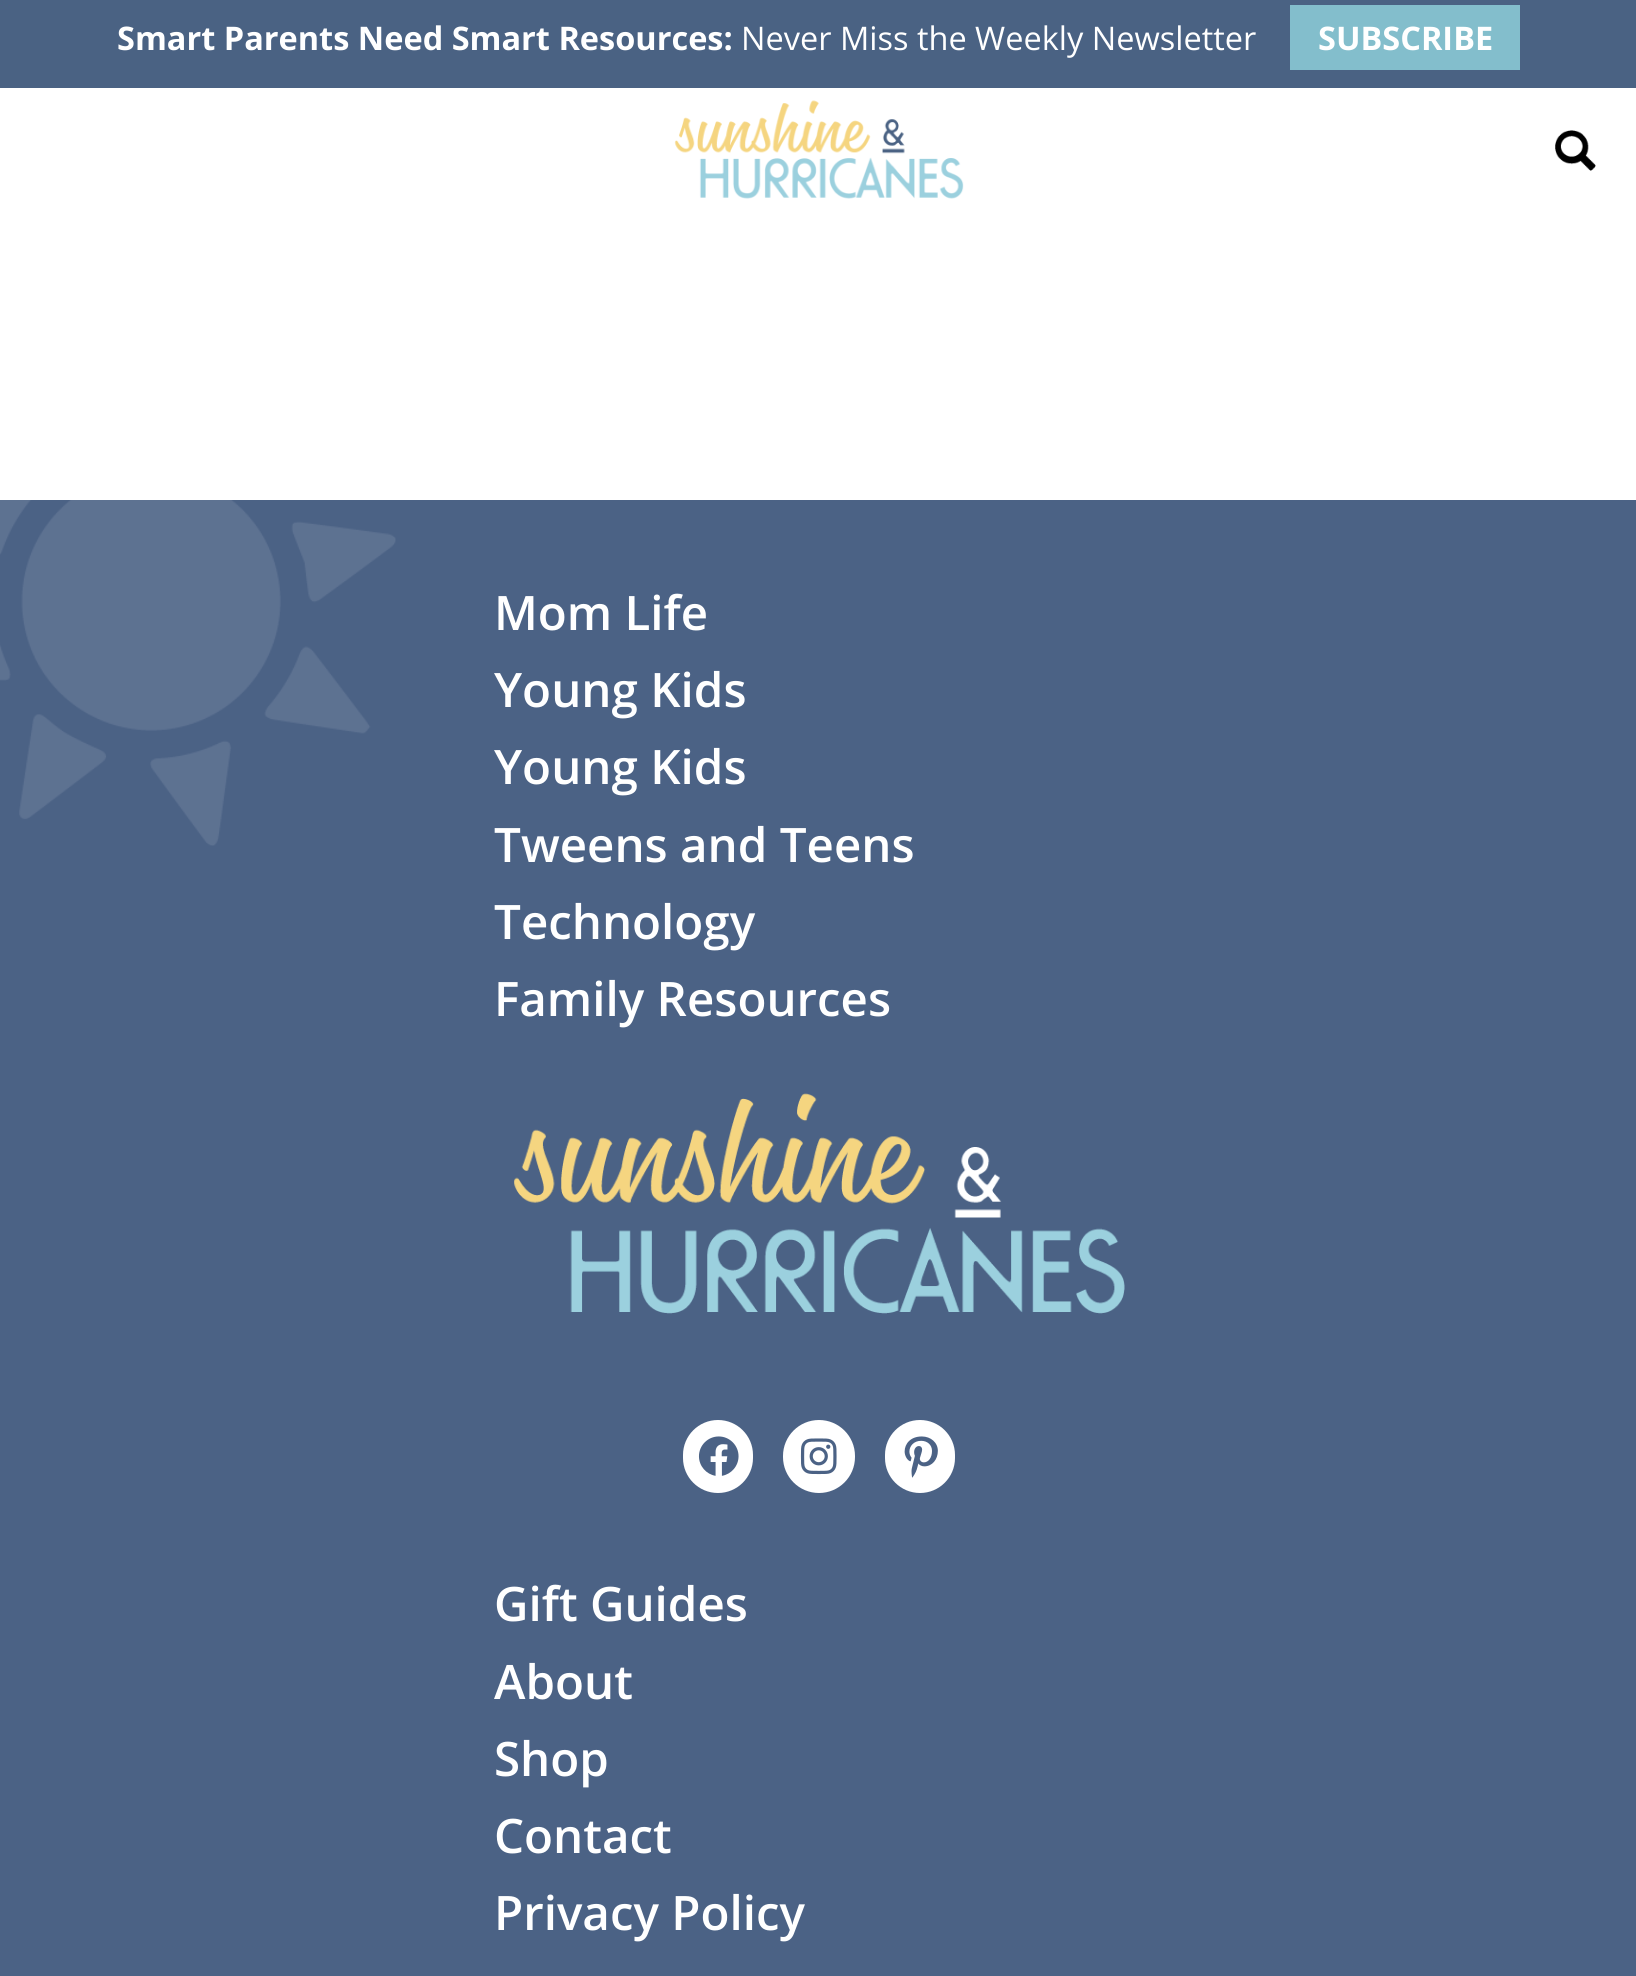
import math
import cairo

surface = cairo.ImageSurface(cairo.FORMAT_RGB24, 1636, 1976)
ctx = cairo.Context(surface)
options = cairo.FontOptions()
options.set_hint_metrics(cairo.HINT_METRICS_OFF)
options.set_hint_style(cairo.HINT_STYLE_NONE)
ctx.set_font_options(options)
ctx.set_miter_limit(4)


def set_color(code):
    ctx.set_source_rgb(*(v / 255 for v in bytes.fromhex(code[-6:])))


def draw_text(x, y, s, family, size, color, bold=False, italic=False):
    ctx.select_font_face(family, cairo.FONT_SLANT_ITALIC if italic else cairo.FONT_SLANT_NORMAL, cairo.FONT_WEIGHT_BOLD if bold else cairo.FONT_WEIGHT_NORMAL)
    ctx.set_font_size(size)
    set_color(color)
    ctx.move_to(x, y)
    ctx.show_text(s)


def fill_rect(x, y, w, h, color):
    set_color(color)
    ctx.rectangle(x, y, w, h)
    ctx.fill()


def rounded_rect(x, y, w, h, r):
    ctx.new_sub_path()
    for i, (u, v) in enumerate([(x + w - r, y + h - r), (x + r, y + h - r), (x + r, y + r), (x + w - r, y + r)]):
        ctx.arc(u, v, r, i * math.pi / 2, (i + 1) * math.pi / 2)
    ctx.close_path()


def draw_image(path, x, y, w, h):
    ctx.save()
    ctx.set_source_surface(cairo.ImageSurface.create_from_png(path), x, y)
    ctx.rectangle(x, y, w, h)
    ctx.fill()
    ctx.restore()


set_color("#ffffff")
ctx.paint()
fill_rect(0, 0, 1636, 88, "#4a6283")
draw_text(117, 50, "Smart Parents Need Smart Resources:", "Open Sans", 32.5, "#ffffff", bold=True)
draw_text(741, 50, "Never Miss the Weekly Newsletter", "Open Sans", 32.5, "#ffffff")
fill_rect(1290, 5, 230, 65, "#83becc")
draw_text(1318, 50, "SUBSCRIBE", "Open Sans", 32.5, "#ffffff", bold=True)
draw_image("assets/img1.png", 674, 100, 290, 99)
draw_image("assets/img2.png", 1555, 130, 41, 41)
fill_rect(0, 500, 1636, 1476, "#4b6285")
draw_image("assets/img3.png", 0, 500, 396, 346)
draw_text(494, 630, "Mom Life", "Open Sans SemiBold", 47.5, "#ffffff")
draw_text(494, 707, "Young Kids", "Open Sans SemiBold", 47.5, "#ffffff")
draw_text(494, 784, "Young Kids", "Open Sans SemiBold", 47.5, "#ffffff")
draw_text(494, 862, "Tweens and Teens", "Open Sans SemiBold", 47.5, "#ffffff")
draw_text(494, 939, "Technology", "Open Sans SemiBold", 47.5, "#ffffff")
draw_text(494, 1016, "Family Resources", "Open Sans SemiBold", 47.5, "#ffffff")
draw_image("assets/img4.png", 514, 1093, 611, 221)
rounded_rect(683, 1420, 70, 73, 35)
ctx.fill()
draw_image("assets/img5.png", 698, 1436, 41, 40)
rounded_rect(783, 1420, 72, 73, 36)
ctx.fill()
draw_image("assets/img6.png", 800, 1438, 37, 37)
rounded_rect(885, 1420, 70, 73, 35)
ctx.fill()
draw_image("assets/img7.png", 904, 1436, 34, 42)
draw_text(494, 1621, "Gift Guides", "Open Sans SemiBold", 47.5, "#ffffff")
draw_text(494, 1699, "About", "Open Sans SemiBold", 47.5, "#ffffff")
draw_text(494, 1776, "Shop", "Open Sans SemiBold", 47.5, "#ffffff")
draw_text(494, 1853, "Contact", "Open Sans SemiBold", 47.5, "#ffffff")
draw_text(494, 1930, "Privacy Policy", "Open Sans SemiBold", 47.5, "#ffffff")
surface.write_to_png("output.png")
